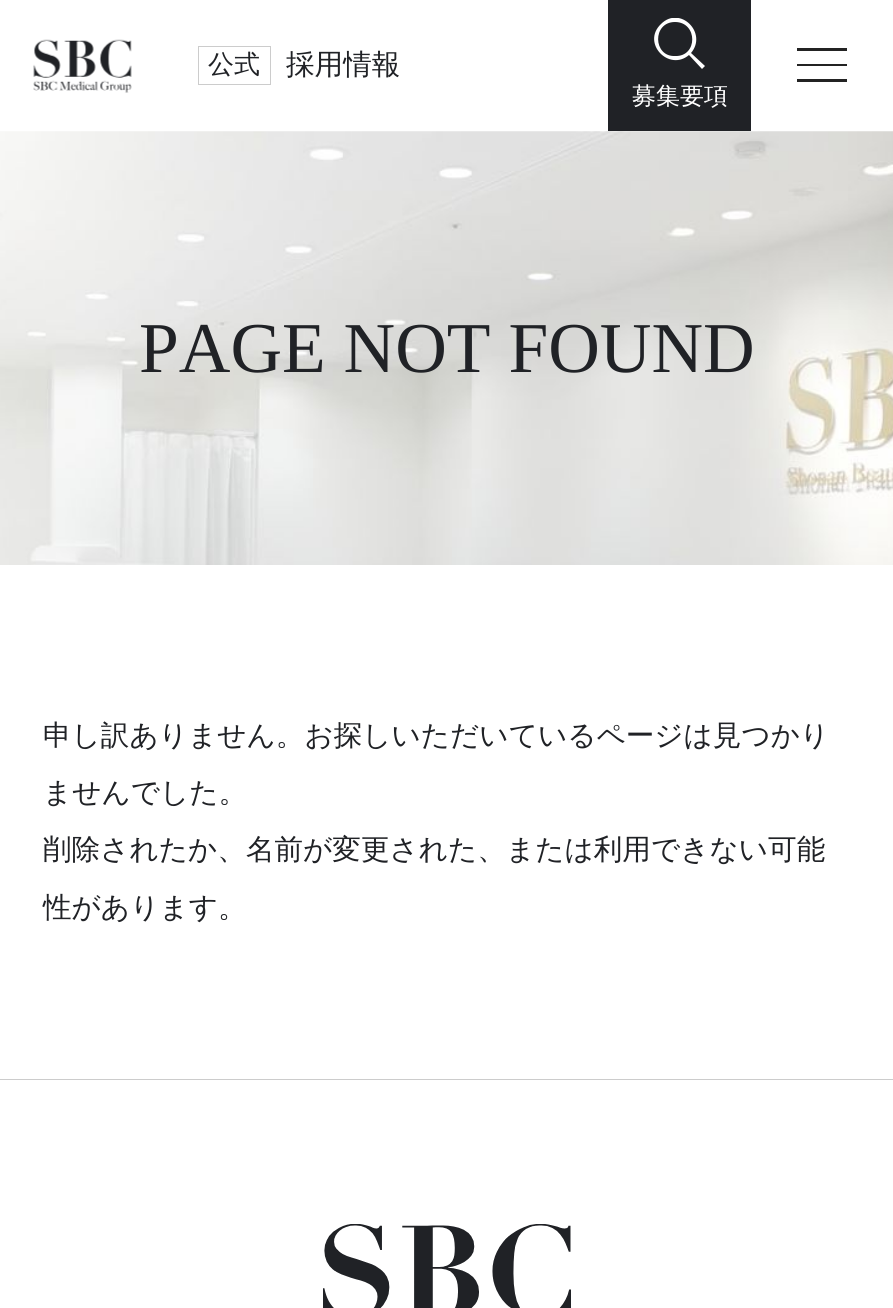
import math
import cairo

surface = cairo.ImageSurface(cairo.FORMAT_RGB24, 893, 1308)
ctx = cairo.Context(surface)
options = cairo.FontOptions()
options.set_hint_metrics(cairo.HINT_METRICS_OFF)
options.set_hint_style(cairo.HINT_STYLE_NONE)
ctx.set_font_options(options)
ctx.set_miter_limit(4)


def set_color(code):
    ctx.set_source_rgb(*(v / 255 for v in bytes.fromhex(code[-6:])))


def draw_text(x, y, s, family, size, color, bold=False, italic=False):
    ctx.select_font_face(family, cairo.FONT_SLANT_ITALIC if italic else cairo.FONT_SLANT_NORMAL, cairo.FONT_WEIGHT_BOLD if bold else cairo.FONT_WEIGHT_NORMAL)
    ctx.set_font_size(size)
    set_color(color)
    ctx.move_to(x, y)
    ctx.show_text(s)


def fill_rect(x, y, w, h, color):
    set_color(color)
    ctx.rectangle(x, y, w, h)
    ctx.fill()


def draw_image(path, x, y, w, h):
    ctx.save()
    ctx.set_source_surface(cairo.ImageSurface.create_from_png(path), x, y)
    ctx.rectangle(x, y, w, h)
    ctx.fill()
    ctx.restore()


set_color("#ffffff")
ctx.paint()
draw_image("assets/img1.png", 33, 39, 99, 54)
ctx.rectangle(198.5, 46.5, 72, 38)
set_color("#cccccc")
ctx.set_line_width(1)
ctx.stroke()
draw_text(208, 73, "公式", "WenQuanYi Zen Hei Medium", 26, "#202226")
draw_text(286, 74, "採用情報", "WenQuanYi Zen Hei Medium", 28.6, "#202226")
set_color("#232323")
ctx.new_path()
ctx.move_to(797, 82)
ctx.line_to(797, 79)
ctx.line_to(847, 79)
ctx.line_to(847, 82)
ctx.close_path()
ctx.move_to(797, 66)
ctx.line_to(797, 64)
ctx.line_to(847, 64)
ctx.line_to(847, 66)
ctx.close_path()
ctx.move_to(797, 51)
ctx.line_to(797, 48)
ctx.line_to(847, 48)
ctx.line_to(847, 51)
ctx.close_path()
ctx.fill()
fill_rect(608, 0, 143, 131, "#202226")
ctx.save()
ctx.rectangle(654, 18, 52, 52)
ctx.clip()
set_color("#ffffff")
ctx.new_path()
ctx.move_to(702, 69)
ctx.line_to(689, 55)
ctx.curve_to(669, 72, 641, 43, 661, 24)
ctx.curve_to(680, 5, 708, 33, 691, 53)
ctx.line_to(705, 66)
ctx.close_path()
ctx.move_to(675, 56)
ctx.curve_to(698, 57, 698, 22, 675, 22)
ctx.curve_to(652, 22, 653, 57, 675, 56)
ctx.close_path()
ctx.fill()
ctx.restore()
draw_text(632, 104, "募集要項", "WenQuanYi Zen Hei Medium", 24, "#ffffff")
draw_image("assets/img2.png", 0, 131, 893, 434)
draw_text(139, 372, "PAGE NOT FOUND", "Liberation Serif", 71.5, "#202226")
draw_text(43, 745, "申し訳ありません。お探しいただいているページは見つかり", "WenQuanYi Zen Hei Medium", 28.6, "#202226")
draw_text(43, 802, "ませんでした。", "WenQuanYi Zen Hei Medium", 28.6, "#202226")
draw_text(43, 859, "削除されたか、名前が変更された、または利用できない可能", "WenQuanYi Zen Hei Medium", 28.6, "#202226")
draw_text(43, 917, "性があります。", "WenQuanYi Zen Hei Medium", 28.6, "#202226")
fill_rect(0, 1079, 893, 1, "#cccccc")
draw_image("assets/img3.png", 323, 1224, 248, 84)
surface.write_to_png("output.png")
